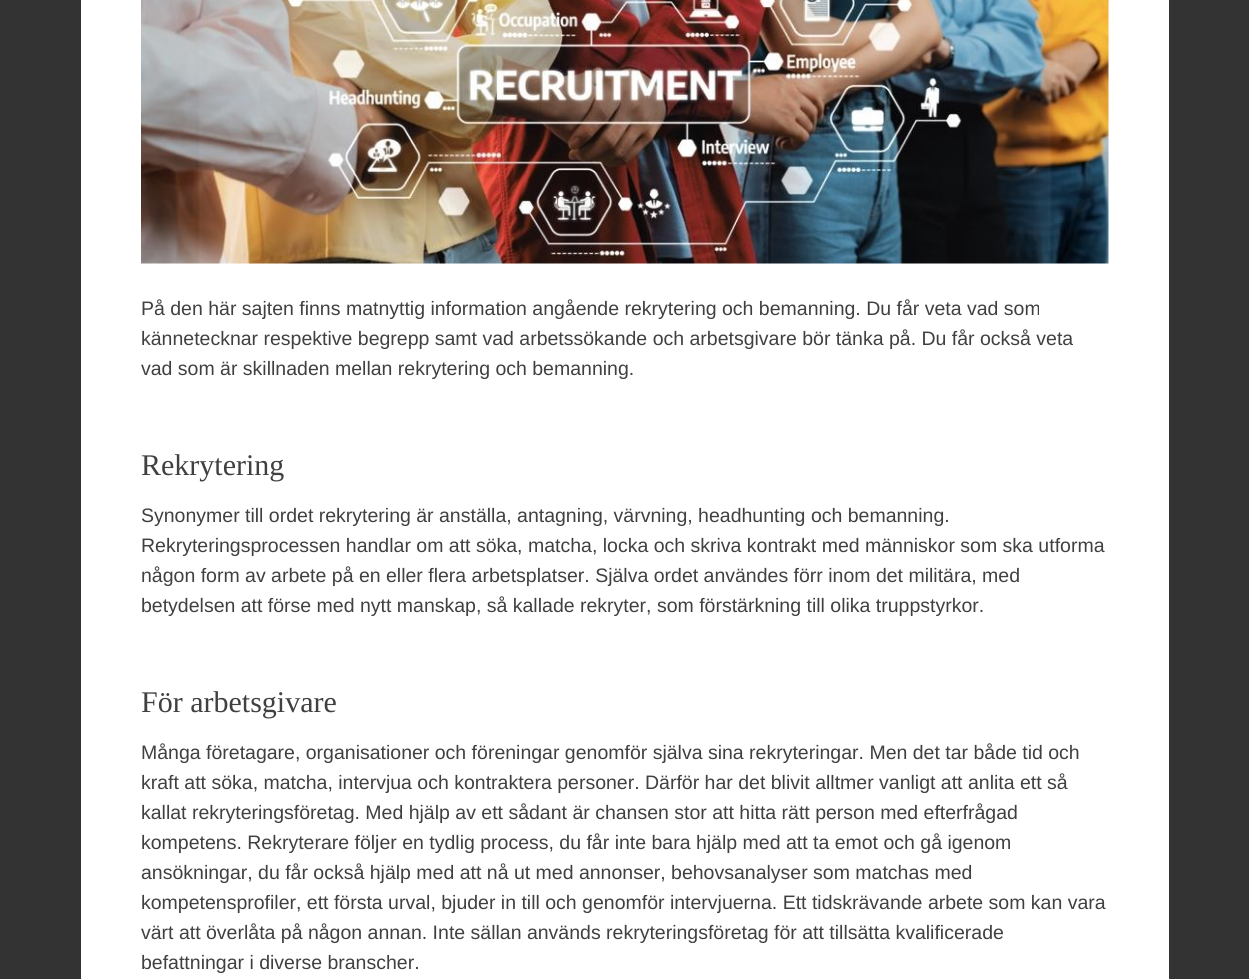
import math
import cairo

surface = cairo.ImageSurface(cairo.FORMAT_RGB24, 1249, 979)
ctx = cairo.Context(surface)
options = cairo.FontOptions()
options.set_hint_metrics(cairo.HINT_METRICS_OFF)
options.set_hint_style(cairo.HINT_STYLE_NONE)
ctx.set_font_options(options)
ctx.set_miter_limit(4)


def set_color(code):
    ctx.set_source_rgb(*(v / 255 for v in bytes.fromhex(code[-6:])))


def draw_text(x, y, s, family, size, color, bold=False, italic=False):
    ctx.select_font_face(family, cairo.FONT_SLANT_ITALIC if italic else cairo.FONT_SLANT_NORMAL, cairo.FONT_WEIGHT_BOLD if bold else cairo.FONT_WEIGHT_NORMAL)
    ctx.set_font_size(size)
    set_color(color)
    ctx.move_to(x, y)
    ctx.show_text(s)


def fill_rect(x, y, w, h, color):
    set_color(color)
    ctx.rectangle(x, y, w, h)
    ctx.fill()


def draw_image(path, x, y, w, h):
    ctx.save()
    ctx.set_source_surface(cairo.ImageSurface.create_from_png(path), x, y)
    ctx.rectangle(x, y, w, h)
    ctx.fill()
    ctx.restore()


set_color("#333333")
ctx.paint()
fill_rect(81, 0, 1088, 979, "#ffffff")
draw_image("assets/img1.png", 141, 0, 968, 264)
draw_text(141, 315, "På den här sajten finns matnyttig information angående rekrytering och bemanning. Du får veta vad som", "Liberation Sans", 19.5, "#404040")
draw_text(141, 345, "kännetecknar respektive begrepp samt vad arbetssökande och arbetsgivare bör tänka på. Du får också veta", "Liberation Sans", 19.5, "#404040")
draw_text(141, 375, "vad som är skillnaden mellan rekrytering och bemanning.", "Liberation Sans", 19.5, "#404040")
draw_text(141, 475, "Rekrytering", "Liberation Serif", 30, "#404040")
draw_text(141, 522, "Synonymer till ordet rekrytering är anställa, antagning, värvning, headhunting och bemanning.", "Liberation Sans", 19.5, "#404040")
draw_text(141, 552, "Rekryteringsprocessen handlar om att söka, matcha, locka och skriva kontrakt med människor som ska utforma", "Liberation Sans", 19.5, "#404040")
draw_text(141, 582, "någon form av arbete på en eller flera arbetsplatser. Själva ordet användes förr inom det militära, med", "Liberation Sans", 19.5, "#404040")
draw_text(141, 612, "betydelsen att förse med nytt manskap, så kallade rekryter, som förstärkning till olika truppstyrkor.", "Liberation Sans", 19.5, "#404040")
draw_text(141, 712, "För arbetsgivare", "Liberation Serif", 30, "#404040")
draw_text(141, 759, "Många företagare, organisationer och föreningar genomför själva sina rekryteringar. Men det tar både tid och", "Liberation Sans", 19.5, "#404040")
draw_text(141, 789, "kraft att söka, matcha, intervjua och kontraktera personer. Därför har det blivit alltmer vanligt att anlita ett så", "Liberation Sans", 19.5, "#404040")
draw_text(141, 819, "kallat rekryteringsföretag. Med hjälp av ett sådant är chansen stor att hitta rätt person med efterfrågad", "Liberation Sans", 19.5, "#404040")
draw_text(141, 849, "kompetens. Rekryterare följer en tydlig process, du får inte bara hjälp med att ta emot och gå igenom", "Liberation Sans", 19.5, "#404040")
draw_text(141, 879, "ansökningar, du får också hjälp med att nå ut med annonser, behovsanalyser som matchas med", "Liberation Sans", 19.5, "#404040")
draw_text(141, 909, "kompetensprofiler, ett första urval, bjuder in till och genomför intervjuerna. Ett tidskrävande arbete som kan vara", "Liberation Sans", 19.5, "#404040")
draw_text(141, 939, "värt att överlåta på någon annan. Inte sällan används rekryteringsföretag för att tillsätta kvalificerade", "Liberation Sans", 19.5, "#404040")
draw_text(141, 969, "befattningar i diverse branscher.", "Liberation Sans", 19.5, "#404040")
surface.write_to_png("output.png")
